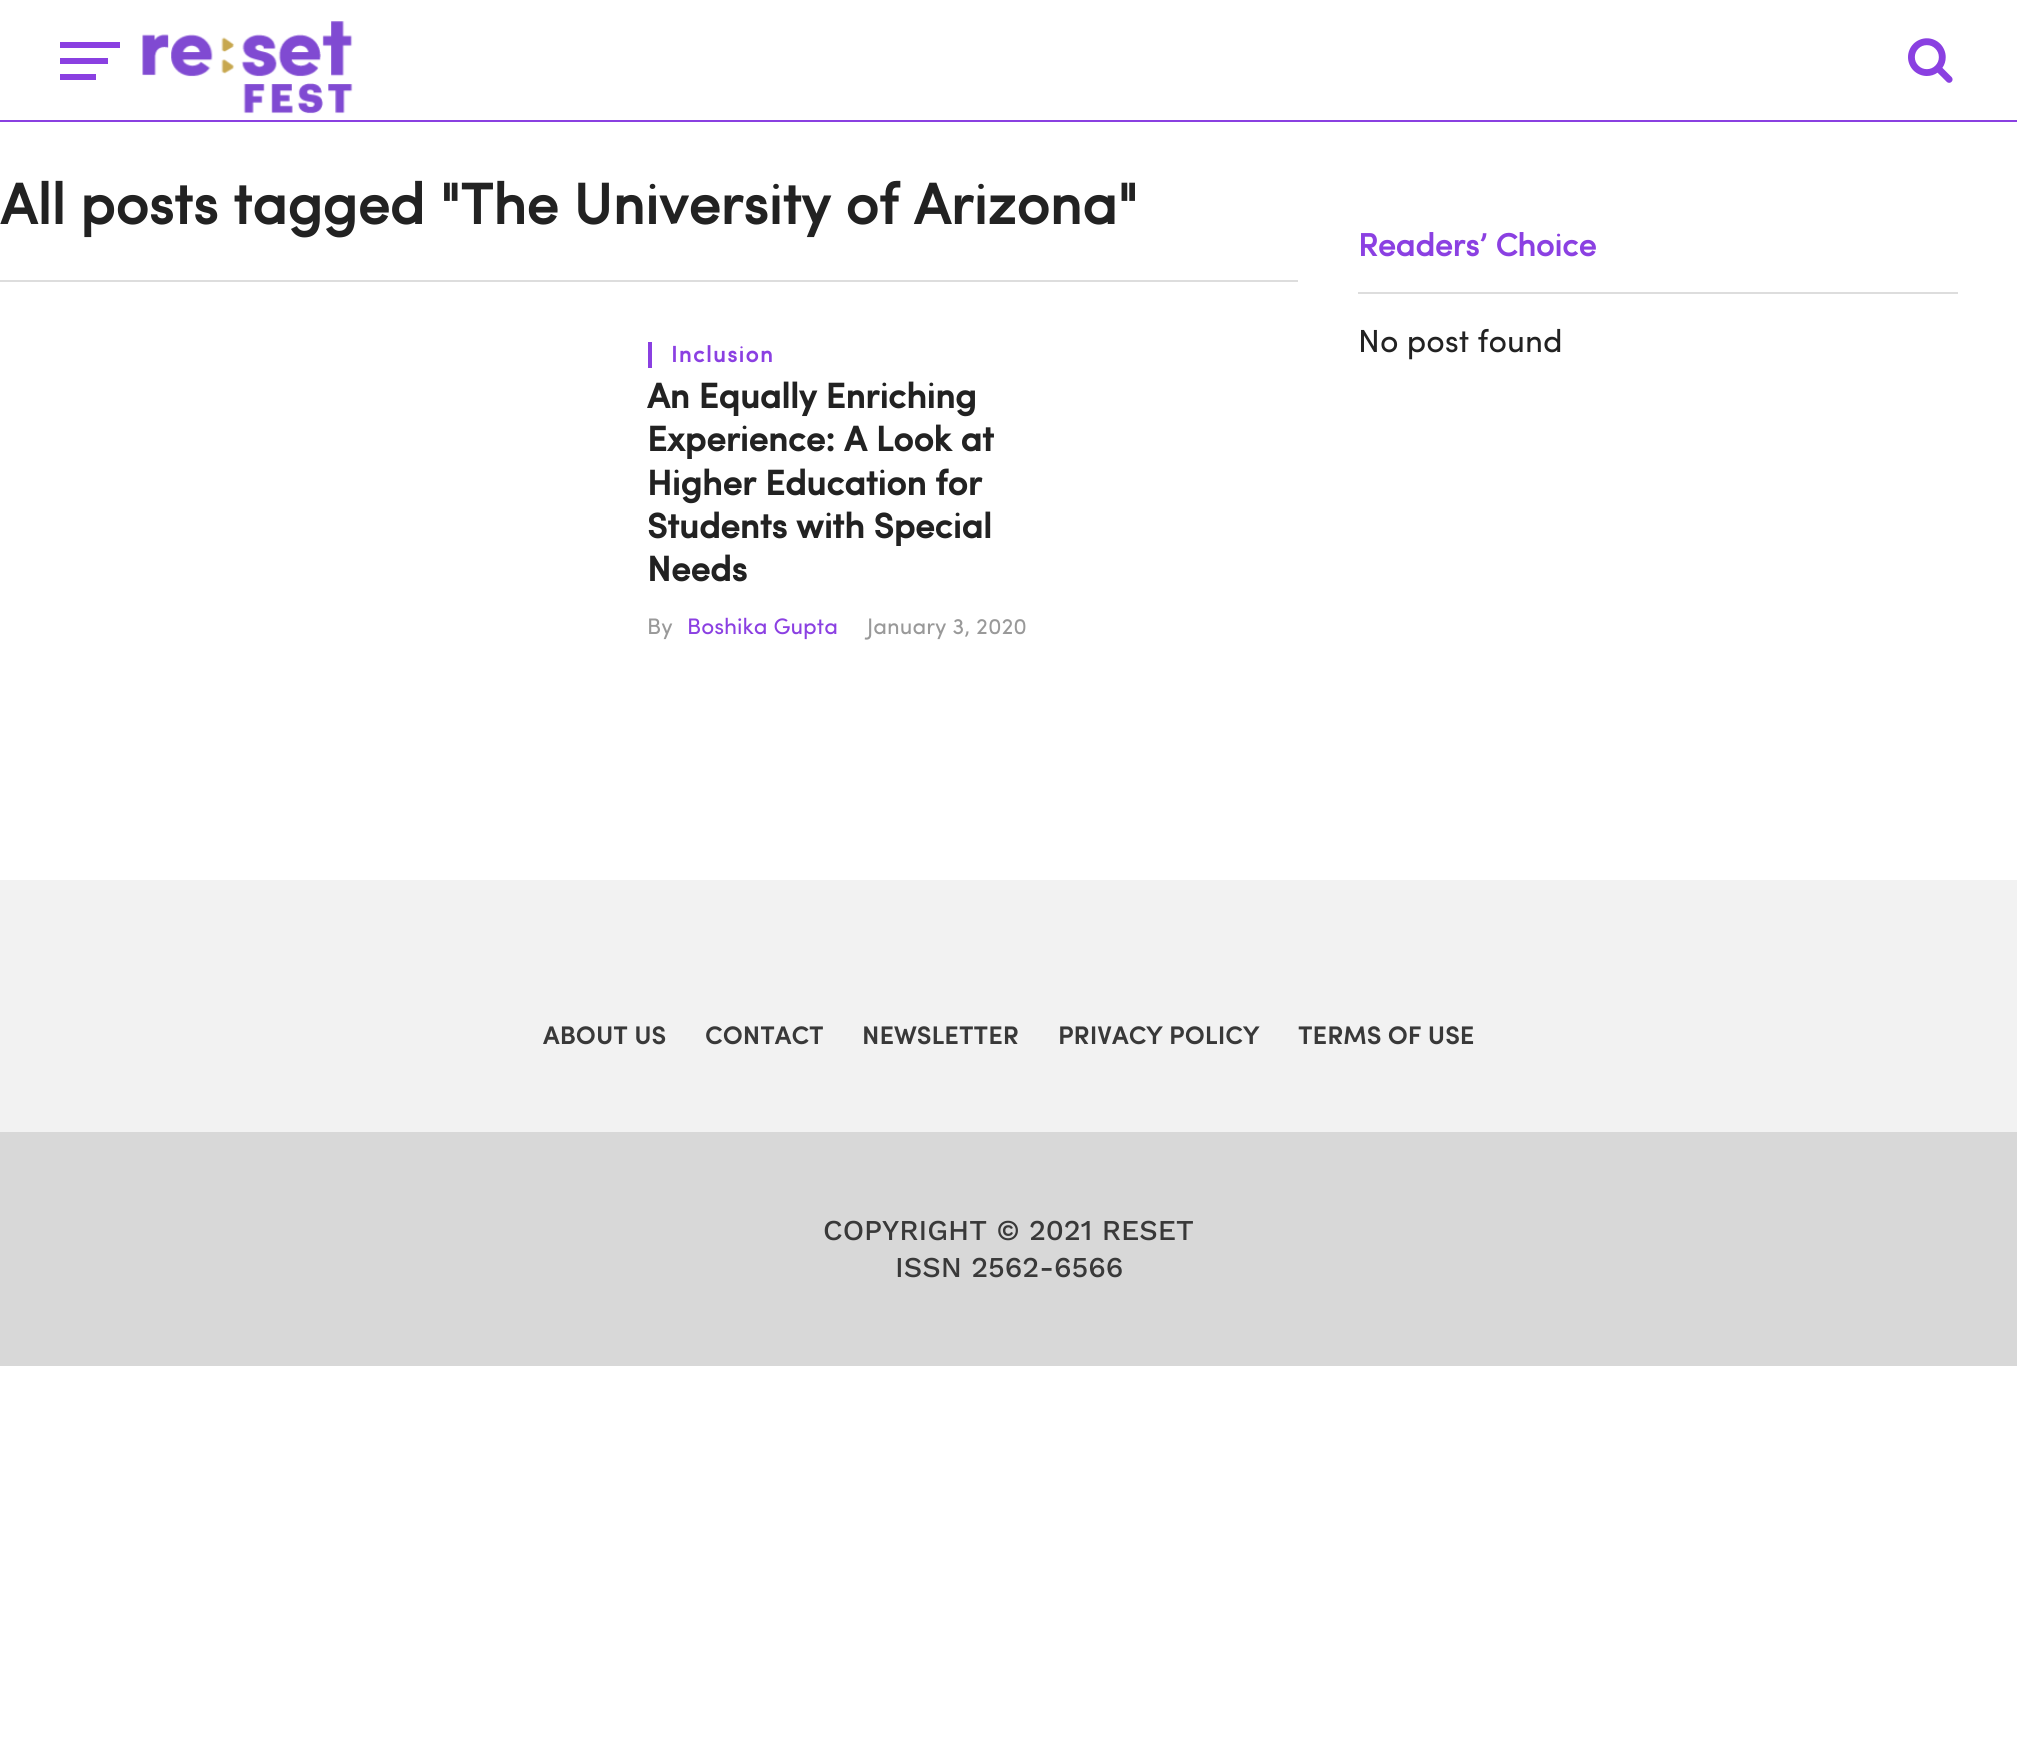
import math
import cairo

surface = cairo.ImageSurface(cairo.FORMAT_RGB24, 2017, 1750)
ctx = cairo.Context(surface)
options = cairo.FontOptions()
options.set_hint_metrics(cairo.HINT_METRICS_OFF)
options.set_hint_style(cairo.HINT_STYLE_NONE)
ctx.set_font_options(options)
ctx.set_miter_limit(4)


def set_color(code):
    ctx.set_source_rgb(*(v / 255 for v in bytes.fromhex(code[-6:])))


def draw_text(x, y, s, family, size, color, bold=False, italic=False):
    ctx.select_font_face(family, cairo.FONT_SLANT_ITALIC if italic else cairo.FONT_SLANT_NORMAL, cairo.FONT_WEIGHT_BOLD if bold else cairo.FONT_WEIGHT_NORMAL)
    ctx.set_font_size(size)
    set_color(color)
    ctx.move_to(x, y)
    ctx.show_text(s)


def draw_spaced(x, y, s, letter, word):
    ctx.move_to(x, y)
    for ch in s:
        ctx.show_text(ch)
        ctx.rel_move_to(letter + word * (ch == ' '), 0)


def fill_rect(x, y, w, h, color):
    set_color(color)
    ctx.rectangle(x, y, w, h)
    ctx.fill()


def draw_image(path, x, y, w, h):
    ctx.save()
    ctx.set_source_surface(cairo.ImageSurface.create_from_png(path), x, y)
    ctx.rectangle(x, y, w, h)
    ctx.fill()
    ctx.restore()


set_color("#ffffff")
ctx.paint()
fill_rect(0, 120, 2017, 2, "#8a40e1")
fill_rect(60, 42, 60, 6, "#8a40e1")
fill_rect(60, 58, 48, 6, "#8a40e1")
fill_rect(60, 74, 36, 6, "#8a40e1")
draw_image("assets/img1.png", 142, 21, 211, 93)
draw_image("assets/img2.png", 1908, 38, 45, 45)
draw_text(0, 224, "All posts tagged \"The University of Arizona\"", "Sofia", 57.6, "#222222", bold=True)
fill_rect(0, 280, 1298, 2, "#dddddd")
fill_rect(648, 342, 4, 26, "#8a40e1")
ctx.set_font_size(22.5)
set_color("#8b40e2")
draw_spaced(671, 362, "Inclusion", 1.5, 0)
draw_text(647, 408, "An Equally Enriching", "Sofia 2", 35.25, "#222222", bold=True)
draw_text(647, 451, "Experience: A Look at", "Sofia 2", 35.25, "#222222", bold=True)
draw_text(647, 495, "Higher Education for", "Sofia 2", 35.25, "#222222", bold=True)
draw_text(647, 538, "Students with Special", "Sofia 2", 35.25, "#222222", bold=True)
draw_text(647, 581, "Needs", "Sofia 2", 35.25, "#222222", bold=True)
draw_text(647, 634, "By", "Sofia", 22.5, "#999999")
draw_text(687, 634, "Boshika Gupta", "Sofia", 22.5, "#8b40e2")
draw_text(867, 634, "January 3, 2020", "Sofia", 22.5, "#999999")
fill_rect(1358, 292, 600, 2, "#dddddd")
draw_text(1358, 256, "Readers’ Choice", "Sofia", 32, "#8b40e2", bold=True)
draw_text(1358, 352, "No post found", "Sofia", 32, "#222222")
fill_rect(0, 880, 2017, 252, "#f2f2f2")
draw_text(543, 1044, "ABOUT US", "Sofia SemiBold", 25.5, "#393939")
draw_text(705, 1044, "CONTACT", "Sofia SemiBold", 25.5, "#393939")
draw_text(862, 1044, "NEWSLETTER", "Sofia SemiBold", 25.5, "#393939")
draw_text(1058, 1044, "PRIVACY POLICY", "Sofia SemiBold", 25.5, "#393939")
draw_text(1298, 1044, "TERMS OF USE", "Sofia SemiBold", 25.5, "#393939")
fill_rect(0, 1132, 2017, 234, "#d8d8d8")
draw_text(823, 1240, "COPYRIGHT © 2021 RESET", "Work Sans Medium", 28.75, "#393939")
draw_text(895, 1277, "ISSN 2562-6566", "Work Sans Medium", 28.75, "#393939")
surface.write_to_png("output.png")
